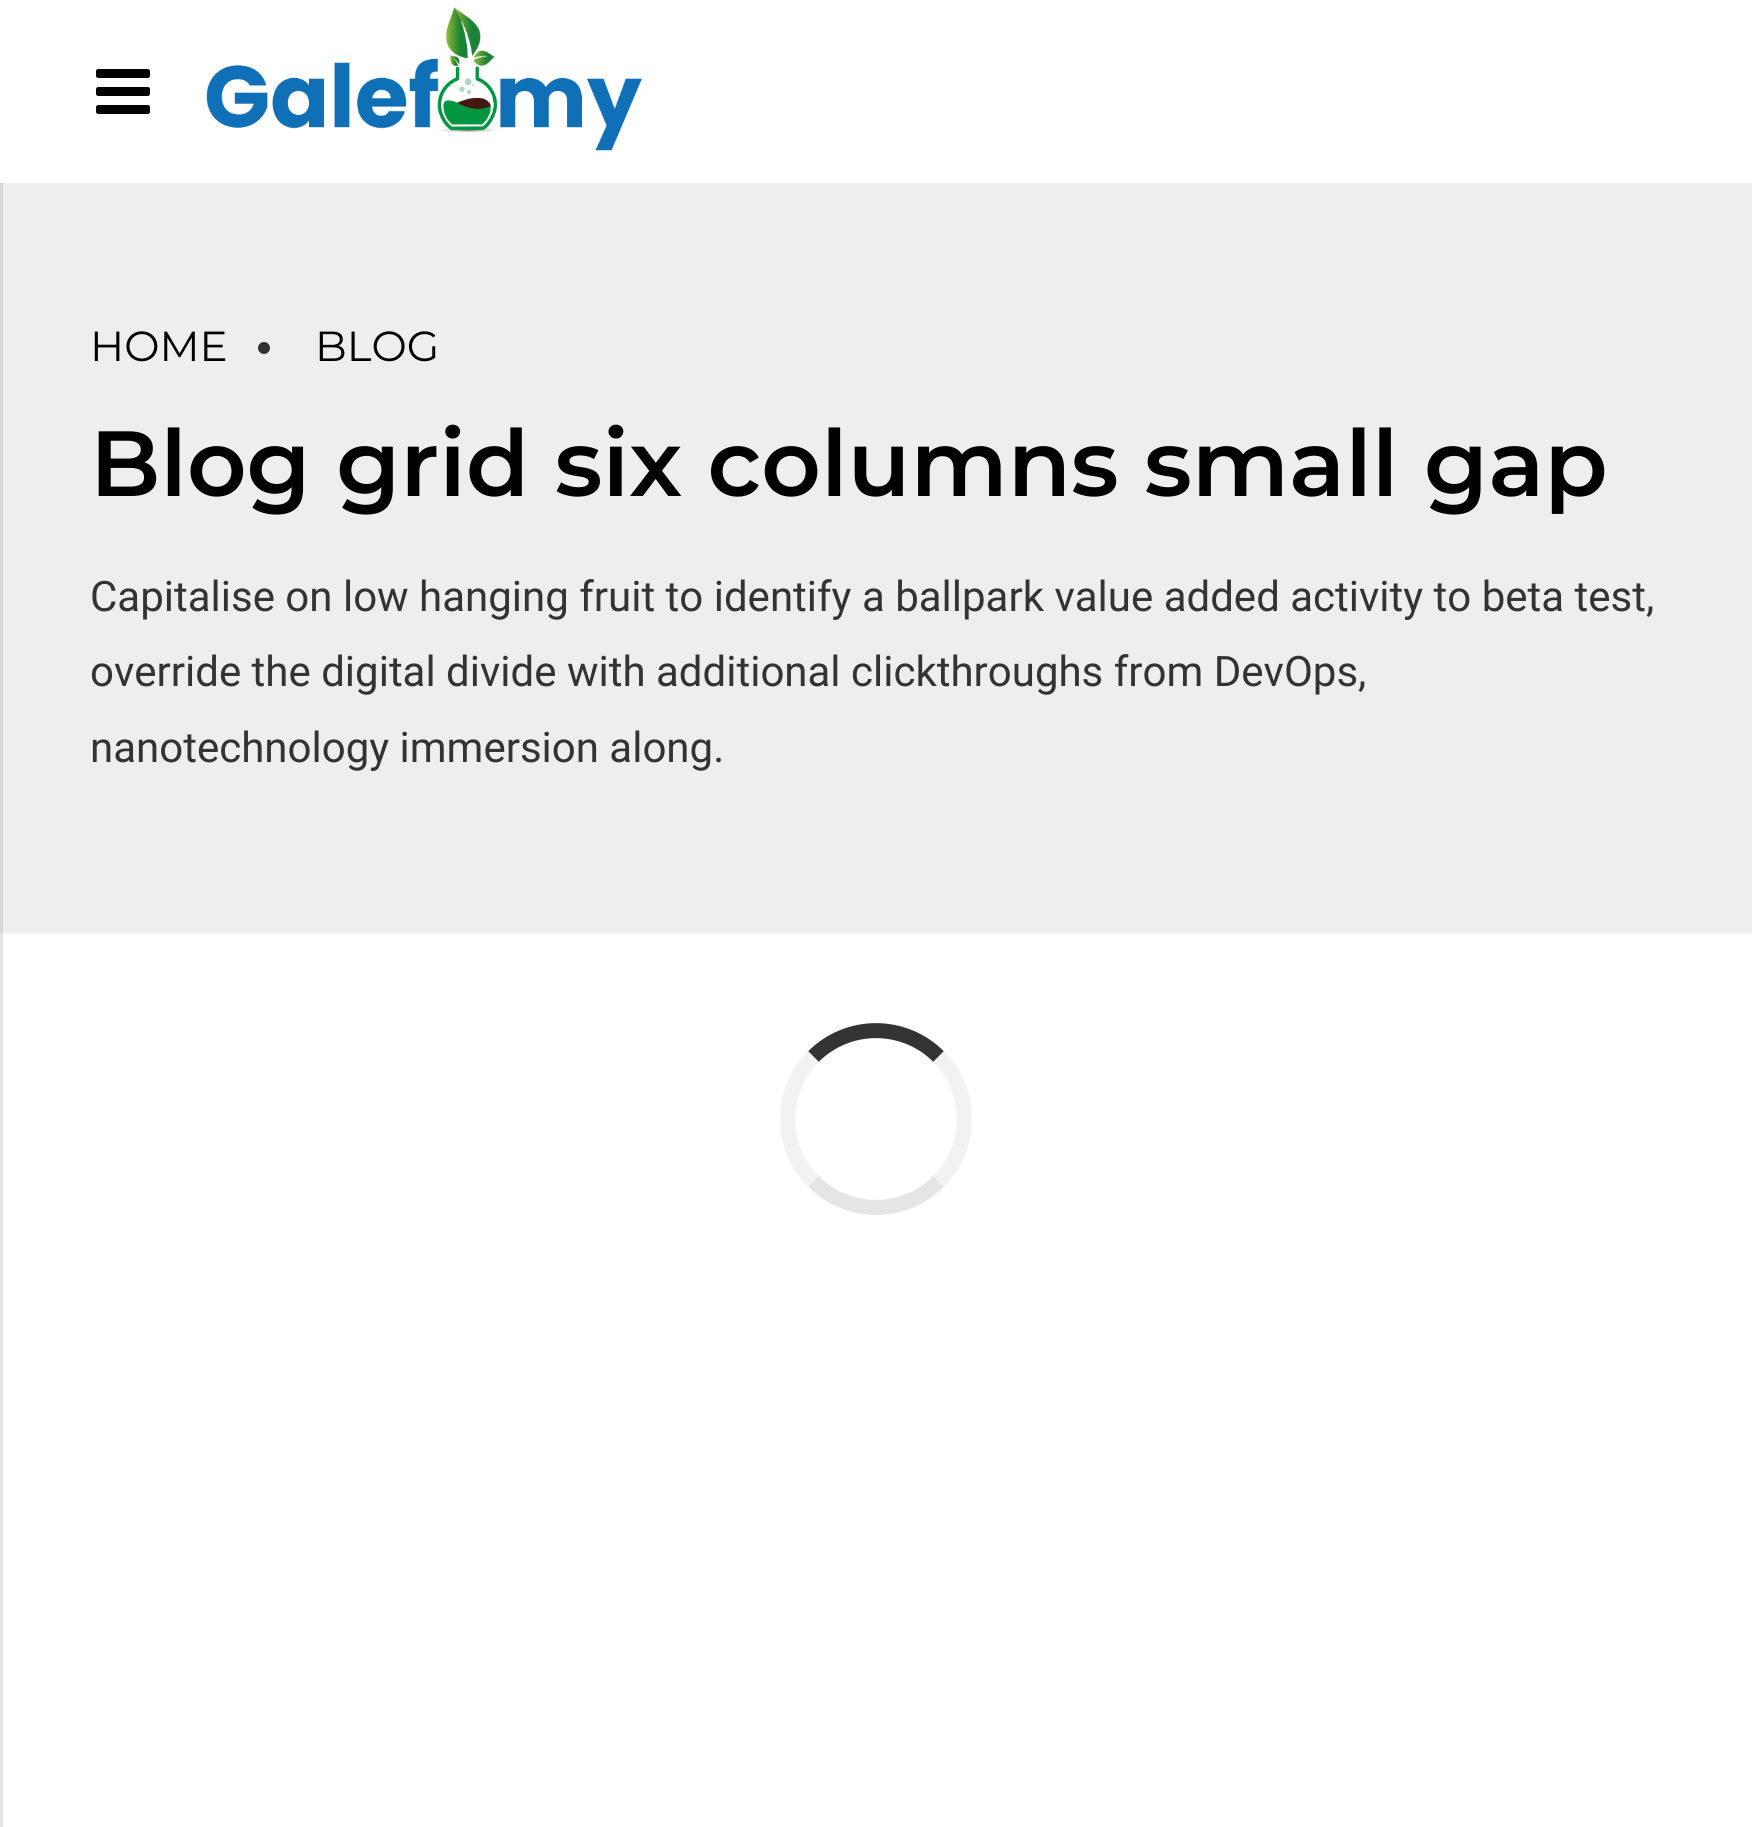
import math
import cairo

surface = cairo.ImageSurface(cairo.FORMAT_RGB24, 1752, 1827)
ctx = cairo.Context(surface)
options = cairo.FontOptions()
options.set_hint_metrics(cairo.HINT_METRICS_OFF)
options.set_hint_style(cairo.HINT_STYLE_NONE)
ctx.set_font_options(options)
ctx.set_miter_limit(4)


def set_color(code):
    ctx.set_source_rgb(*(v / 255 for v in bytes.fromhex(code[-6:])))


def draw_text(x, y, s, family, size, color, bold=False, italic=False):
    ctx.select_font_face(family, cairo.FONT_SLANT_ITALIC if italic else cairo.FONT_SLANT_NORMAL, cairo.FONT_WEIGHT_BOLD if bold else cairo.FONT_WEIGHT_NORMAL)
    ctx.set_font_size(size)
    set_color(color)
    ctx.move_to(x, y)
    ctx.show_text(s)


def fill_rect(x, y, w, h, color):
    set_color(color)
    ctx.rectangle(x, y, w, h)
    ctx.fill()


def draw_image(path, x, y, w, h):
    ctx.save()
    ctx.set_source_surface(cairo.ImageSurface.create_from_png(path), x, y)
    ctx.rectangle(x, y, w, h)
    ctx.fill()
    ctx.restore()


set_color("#ffffff")
ctx.paint()
fill_rect(0, 933, 3, 894, "#e6e6e6")
draw_image("assets/img1.png", 96, 69, 54, 45)
draw_image("assets/img2.png", 206, 7, 436, 144)
fill_rect(3, 183, 1749, 750, "#eeeeee")
fill_rect(0, 183, 3, 750, "#d6d6d6")
draw_text(90, 361, "HOME", "Montserrat", 42, "#000000")
set_color("#333333")
ctx.new_path()
ctx.arc(264, 348, 6, 0, 2 * math.pi)
ctx.fill()
draw_text(315, 361, "BLOG", "Montserrat", 42, "#000000")
draw_text(90, 496, "Blog grid six columns small gap", "Montserrat SemiBold", 92.4, "#000000")
draw_text(90, 611, "Capitalise on low hanging fruit to identify a ballpark value added activity to beta test,", "Roboto", 42, "#333333")
draw_text(90, 686, "override the digital divide with additional clickthroughs from DevOps,", "Roboto", 42, "#333333")
draw_text(90, 762, "nanotechnology immersion along.", "Roboto", 42, "#333333")
ctx.new_path()
ctx.move_to(813.5, 1056.5)
ctx.curve_to(848, 1022, 904, 1022, 938.5, 1056.5)
ctx.set_line_width(15)
ctx.stroke()
ctx.new_path()
ctx.move_to(938.5, 1056.5)
ctx.curve_to(973, 1091, 973, 1147, 938.5, 1181.5)
ctx.set_source_rgba(0.502, 0.502, 0.502, 0.1)
ctx.stroke()
ctx.new_path()
ctx.move_to(938.5, 1181.5)
ctx.curve_to(904, 1216, 848, 1216, 813.5, 1181.5)
ctx.set_source_rgba(0.502, 0.502, 0.502, 0.2)
ctx.stroke()
ctx.new_path()
ctx.move_to(813.5, 1181.5)
ctx.curve_to(779, 1147, 779, 1091, 813.5, 1056.5)
ctx.set_source_rgba(0.502, 0.502, 0.502, 0.1)
ctx.stroke()
surface.write_to_png("output.png")
